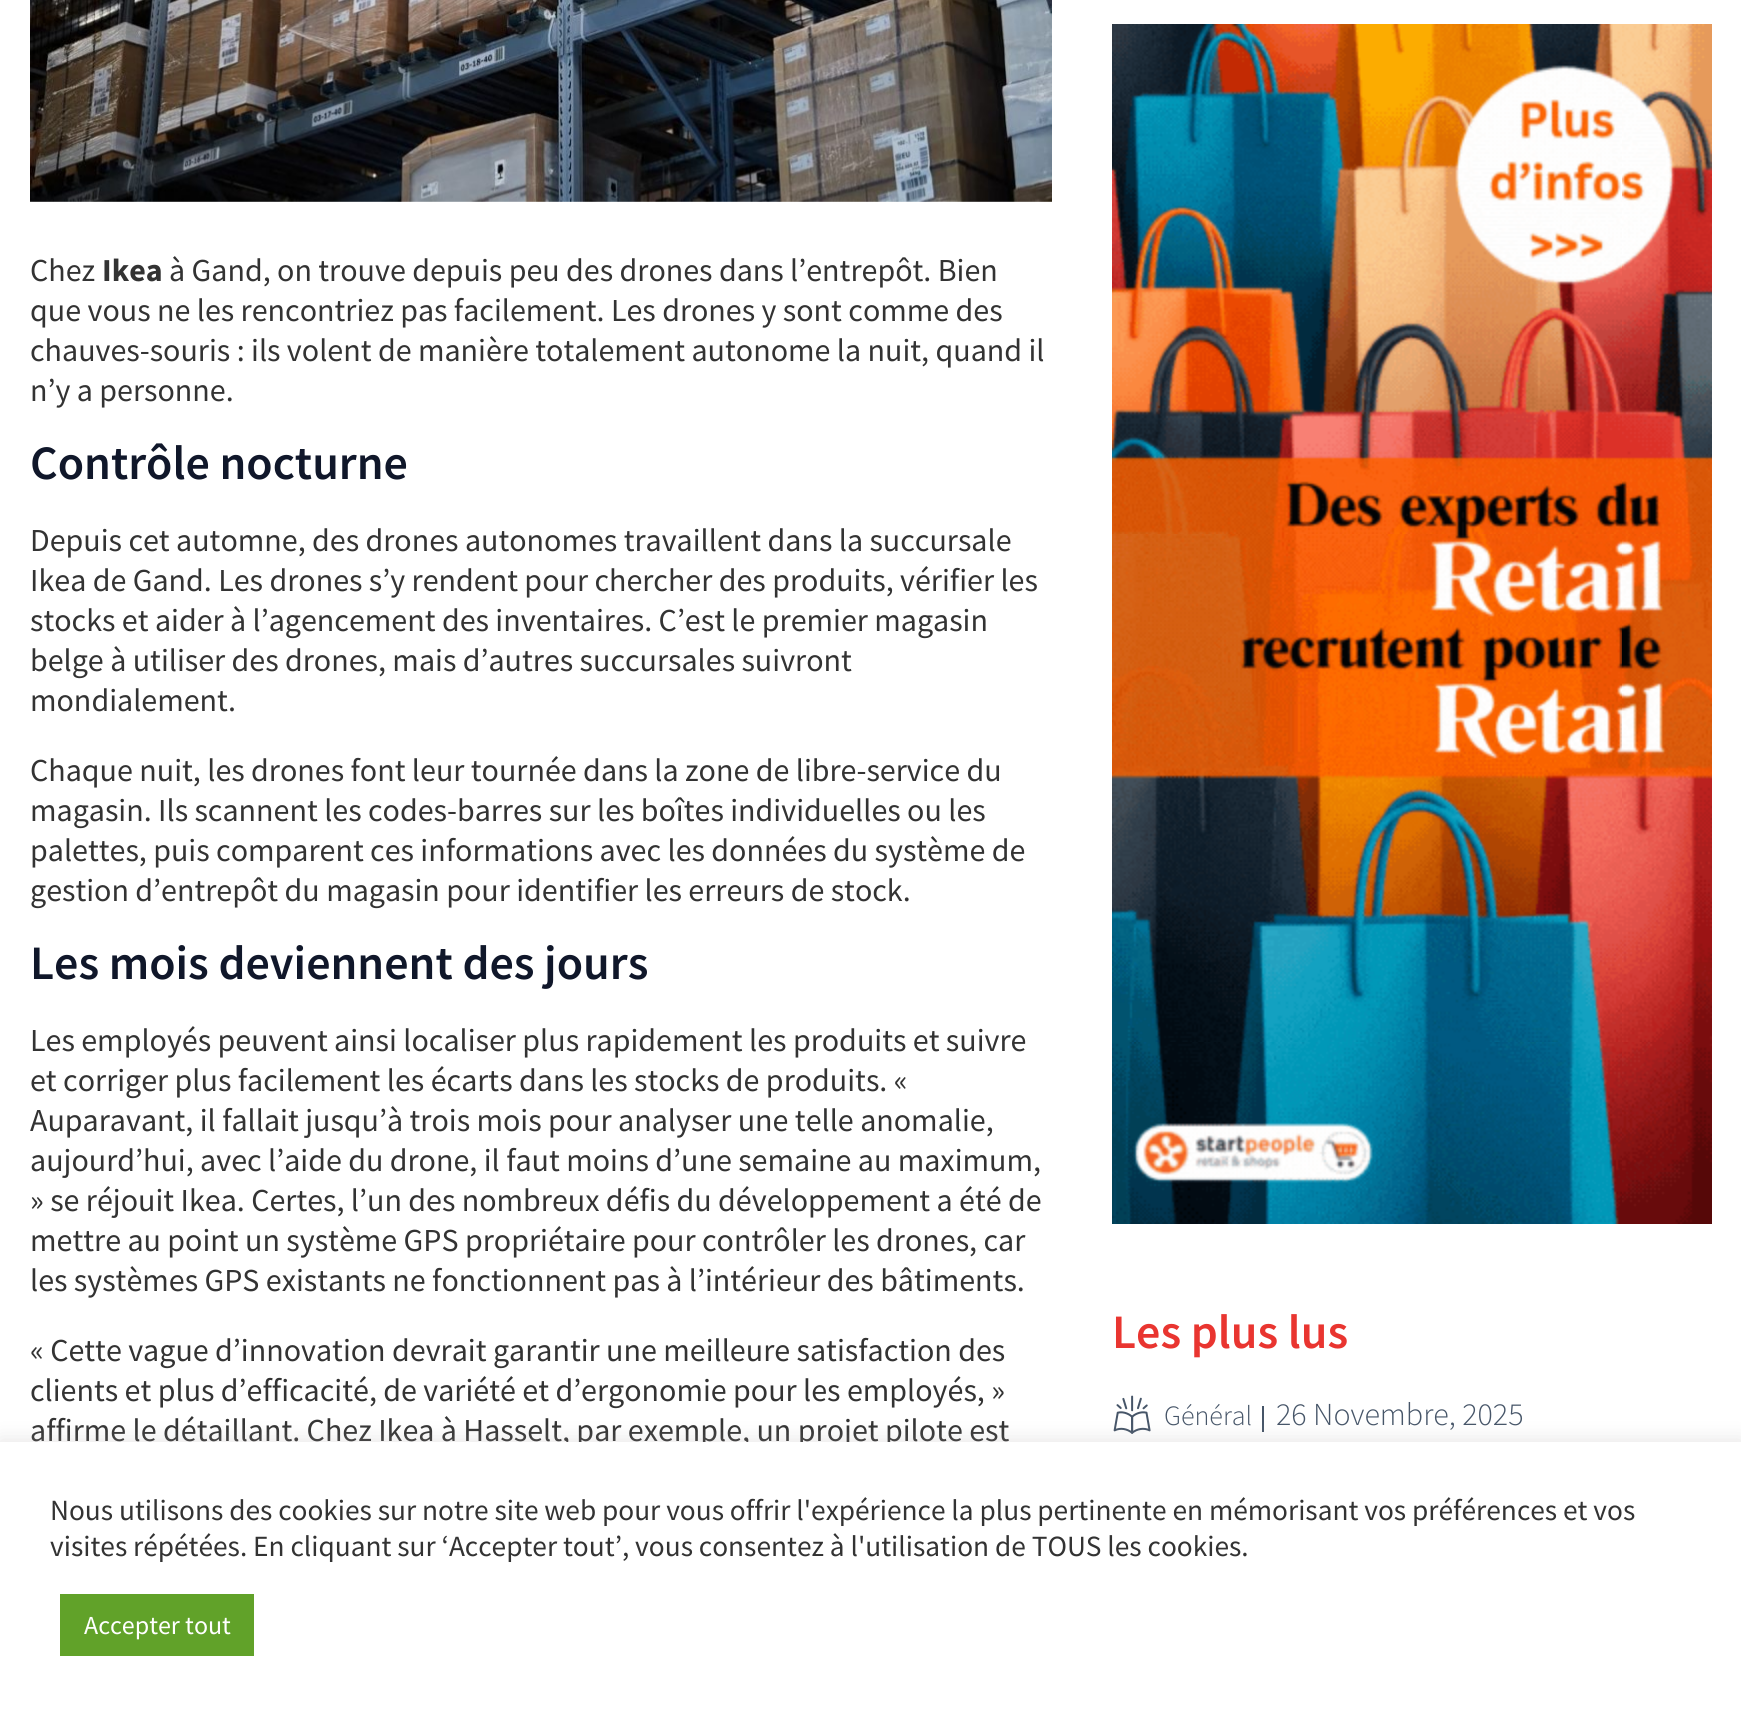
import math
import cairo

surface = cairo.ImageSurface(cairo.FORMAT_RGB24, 1741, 1716)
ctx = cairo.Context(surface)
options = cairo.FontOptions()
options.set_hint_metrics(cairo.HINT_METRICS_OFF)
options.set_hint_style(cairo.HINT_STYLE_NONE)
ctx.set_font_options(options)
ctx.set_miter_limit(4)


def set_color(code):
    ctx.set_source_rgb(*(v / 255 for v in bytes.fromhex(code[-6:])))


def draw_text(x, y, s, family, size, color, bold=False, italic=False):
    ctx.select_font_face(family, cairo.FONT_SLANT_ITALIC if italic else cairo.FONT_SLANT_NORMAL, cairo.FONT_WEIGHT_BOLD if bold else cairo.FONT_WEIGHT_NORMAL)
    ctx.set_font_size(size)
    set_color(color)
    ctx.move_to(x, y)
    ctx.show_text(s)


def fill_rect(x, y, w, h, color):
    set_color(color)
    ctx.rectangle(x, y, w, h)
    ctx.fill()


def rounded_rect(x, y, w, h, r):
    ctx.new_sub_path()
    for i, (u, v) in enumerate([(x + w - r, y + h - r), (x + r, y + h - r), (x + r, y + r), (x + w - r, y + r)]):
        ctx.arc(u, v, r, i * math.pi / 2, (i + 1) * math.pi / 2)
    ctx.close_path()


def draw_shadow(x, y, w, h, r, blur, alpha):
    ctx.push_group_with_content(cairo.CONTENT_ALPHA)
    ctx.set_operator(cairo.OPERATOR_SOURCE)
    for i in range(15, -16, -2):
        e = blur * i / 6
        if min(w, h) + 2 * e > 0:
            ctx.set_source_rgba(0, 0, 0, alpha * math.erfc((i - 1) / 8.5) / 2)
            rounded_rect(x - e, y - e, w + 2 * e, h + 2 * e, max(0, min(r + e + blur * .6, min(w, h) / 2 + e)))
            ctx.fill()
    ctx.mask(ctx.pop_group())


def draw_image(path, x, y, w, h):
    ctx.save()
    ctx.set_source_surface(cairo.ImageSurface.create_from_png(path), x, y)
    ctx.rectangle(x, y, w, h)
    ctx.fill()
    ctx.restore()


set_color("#ffffff")
ctx.paint()
draw_image("assets/img1.png", 30, 0, 1022, 202)
draw_text(30, 281, "Chez", "Source Sans Pro", 32, "#333333")
draw_text(102, 281, "Ikea", "Source Sans Pro", 32, "#333333", bold=True)
draw_text(169, 281, "à Gand, on trouve depuis peu des drones dans l’entrepôt. Bien", "Source Sans Pro", 32, "#333333")
draw_text(30, 321, "que vous ne les rencontriez pas facilement. Les drones y sont comme des", "Source Sans Pro", 32, "#333333")
draw_text(30, 361, "chauves-souris : ils volent de manière totalement autonome la nuit, quand il", "Source Sans Pro", 32, "#333333")
draw_text(30, 401, "n’y a personne.", "Source Sans Pro", 32, "#333333")
draw_text(30, 479, "Contrôle nocturne", "Source Sans Pro SemiBold", 48, "#10172a")
draw_text(30, 551, "Depuis cet automne, des drones autonomes travaillent dans la succursale", "Source Sans Pro", 32, "#333333")
draw_text(30, 591, "Ikea de Gand. Les drones s’y rendent pour chercher des produits, vérifier les", "Source Sans Pro", 32, "#333333")
draw_text(30, 631, "stocks et aider à l’agencement des inventaires. C’est le premier magasin", "Source Sans Pro", 32, "#333333")
draw_text(30, 671, "belge à utiliser des drones, mais d’autres succursales suivront", "Source Sans Pro", 32, "#333333")
draw_text(30, 711, "mondialement.", "Source Sans Pro", 32, "#333333")
draw_text(30, 781, "Chaque nuit, les drones font leur tournée dans la zone de libre-service du", "Source Sans Pro", 32, "#333333")
draw_text(30, 821, "magasin. Ils scannent les codes-barres sur les boîtes individuelles ou les", "Source Sans Pro", 32, "#333333")
draw_text(30, 861, "palettes, puis comparent ces informations avec les données du système de", "Source Sans Pro", 32, "#333333")
draw_text(30, 901, "gestion d’entrepôt du magasin pour identifier les erreurs de stock.", "Source Sans Pro", 32, "#333333")
draw_text(30, 979, "Les mois deviennent des jours", "Source Sans Pro SemiBold", 48, "#10172a")
draw_text(30, 1051, "Les employés peuvent ainsi localiser plus rapidement les produits et suivre", "Source Sans Pro", 32, "#333333")
draw_text(30, 1091, "et corriger plus facilement les écarts dans les stocks de produits. «", "Source Sans Pro", 32, "#333333")
draw_text(30, 1131, "Auparavant, il fallait jusqu’à trois mois pour analyser une telle anomalie,", "Source Sans Pro", 32, "#333333")
draw_text(30, 1171, "aujourd’hui, avec l’aide du drone, il faut moins d’une semaine au maximum,", "Source Sans Pro", 32, "#333333")
draw_text(30, 1211, "» se réjouit Ikea. Certes, l’un des nombreux défis du développement a été de", "Source Sans Pro", 32, "#333333")
draw_text(30, 1251, "mettre au point un système GPS propriétaire pour contrôler les drones, car", "Source Sans Pro", 32, "#333333")
draw_text(30, 1291, "les systèmes GPS existants ne fonctionnent pas à l’intérieur des bâtiments.", "Source Sans Pro", 32, "#333333")
draw_text(30, 1361, "« Cette vague d’innovation devrait garantir une meilleure satisfaction des", "Source Sans Pro", 32, "#333333")
draw_text(30, 1401, "clients et plus d’efficacité, de variété et d’ergonomie pour les employés, »", "Source Sans Pro", 32, "#333333")
draw_text(30, 1441, "affirme le détaillant. Chez Ikea à Hasselt, par exemple, un projet pilote est", "Source Sans Pro", 32, "#333333")
draw_image("assets/img2.png", 1112, 24, 600, 1200)
draw_text(1112, 1348, "Les plus lus", "Source Sans Pro SemiBold", 48, "#e93530")
draw_image("assets/img3.png", 1113, 1395, 38, 39)
draw_text(1164, 1425, "Général", "Source Sans Pro Light", 28, "#465568")
fill_rect(1262, 1406, 2, 26, "#465568")
draw_text(1276, 1425, "26 Novembre, 2025", "Source Sans Pro Light", 32, "#465568")
set_color("#acabab")
draw_shadow(0, 1440, 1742, 274, 0, 10, 0.3)
fill_rect(0, 1442, 1741, 274, "#ffffff")
draw_text(50, 1520, "Nous utilisons des cookies sur notre site web pour vous offrir l'expérience la plus pertinente en mémorisant vos préférences et vos", "Source Sans Pro", 29.33, "#333333")
draw_text(50, 1556, "visites répétées. En cliquant sur ‘Accepter tout’, vous consentez à l'utilisation de TOUS les cookies.", "Source Sans Pro", 29.33, "#333333")
fill_rect(60, 1594, 194, 62, "#61a229")
draw_text(84, 1634, "Accepter tout", "Source Sans Pro", 26, "#ffffff")
surface.write_to_png("output.png")
